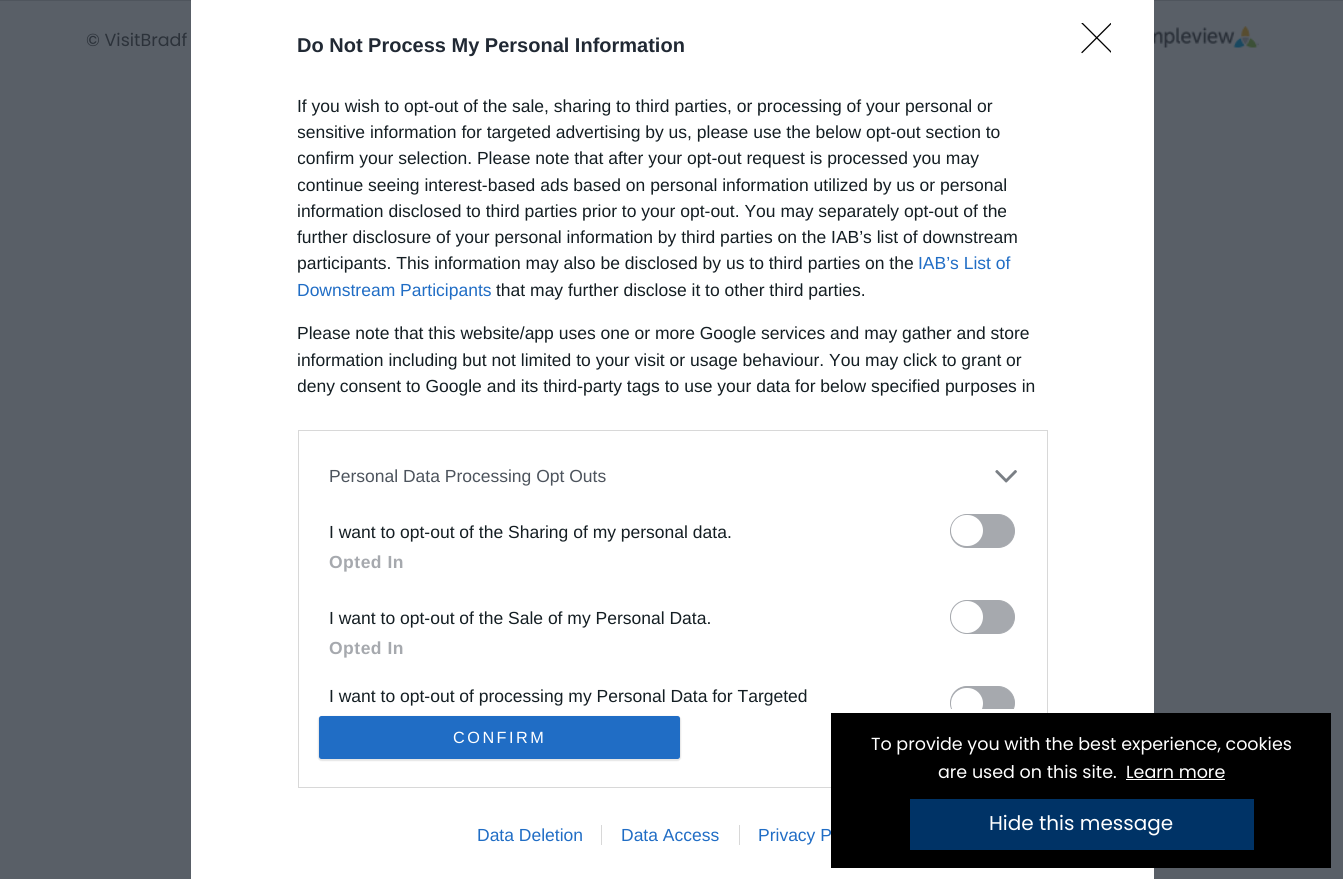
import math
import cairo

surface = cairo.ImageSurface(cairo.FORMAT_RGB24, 1343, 879)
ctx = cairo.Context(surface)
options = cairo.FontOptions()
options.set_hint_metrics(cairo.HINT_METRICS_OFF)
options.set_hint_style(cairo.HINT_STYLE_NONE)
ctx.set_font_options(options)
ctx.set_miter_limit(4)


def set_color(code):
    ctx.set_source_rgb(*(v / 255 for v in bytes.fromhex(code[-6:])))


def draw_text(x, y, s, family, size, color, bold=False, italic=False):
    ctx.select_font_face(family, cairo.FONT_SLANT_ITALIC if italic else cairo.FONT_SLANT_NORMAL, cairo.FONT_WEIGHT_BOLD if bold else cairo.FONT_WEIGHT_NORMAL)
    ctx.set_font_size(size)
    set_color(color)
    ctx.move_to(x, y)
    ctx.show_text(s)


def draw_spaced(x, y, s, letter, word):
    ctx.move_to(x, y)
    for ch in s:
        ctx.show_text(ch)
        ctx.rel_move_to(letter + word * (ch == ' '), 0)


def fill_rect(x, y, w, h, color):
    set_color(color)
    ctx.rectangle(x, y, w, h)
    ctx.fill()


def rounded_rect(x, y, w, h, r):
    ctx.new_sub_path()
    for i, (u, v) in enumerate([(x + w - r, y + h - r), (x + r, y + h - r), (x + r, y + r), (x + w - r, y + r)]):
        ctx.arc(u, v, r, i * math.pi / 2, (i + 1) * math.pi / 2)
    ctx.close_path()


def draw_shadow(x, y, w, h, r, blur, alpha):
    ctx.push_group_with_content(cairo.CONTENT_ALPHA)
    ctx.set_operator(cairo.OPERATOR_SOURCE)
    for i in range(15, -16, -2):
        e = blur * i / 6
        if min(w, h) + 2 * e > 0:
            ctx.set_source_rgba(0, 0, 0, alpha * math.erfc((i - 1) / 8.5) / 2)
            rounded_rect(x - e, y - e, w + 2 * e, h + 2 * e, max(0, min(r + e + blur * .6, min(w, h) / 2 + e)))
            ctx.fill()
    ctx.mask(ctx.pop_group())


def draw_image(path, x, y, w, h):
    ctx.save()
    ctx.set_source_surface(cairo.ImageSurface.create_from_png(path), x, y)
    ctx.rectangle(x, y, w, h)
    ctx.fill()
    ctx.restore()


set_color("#595f67")
ctx.paint()
fill_rect(0, 0, 1343, 1, "#4f555d")
draw_text(86, 46, "© VisitBradf", "Poppins", 17.5, "#2c323a")
draw_image("assets/img1.png", 1154, 26, 105, 22)
fill_rect(191, 0, 963, 879, "#ffffff")
draw_text(297, 52, "Do Not Process My Personal Information", "Liberation Sans", 20, "#212934", bold=True)
draw_text(297, 112, "If you wish to opt-out of the sale, sharing to third parties, or processing of your personal or", "Liberation Sans", 17.5, "#141e23")
ctx.save()
ctx.rectangle(298, 74, 750, 337)
ctx.clip()
draw_text(297, 138, "sensitive information for targeted advertising by us, please use the below opt-out section to", "Liberation Sans", 17.5, "#141e23")
draw_text(297, 164, "confirm your selection. Please note that after your opt-out request is processed you may", "Liberation Sans", 17.5, "#141e23")
draw_text(297, 191, "continue seeing interest-based ads based on personal information utilized by us or personal", "Liberation Sans", 17.5, "#141e23")
ctx.restore()
draw_text(297, 217, "information disclosed to third parties prior to your opt-out. You may separately opt-out of the", "Liberation Sans", 17.5, "#141e23")
draw_text(297, 243, "further disclosure of your personal information by third parties on the IAB’s list of downstream", "Liberation Sans", 17.5, "#141e23")
draw_text(297, 269, "participants. This information may also be disclosed by us to third parties on the", "Liberation Sans", 17.5, "#141e23")
draw_text(918, 269, "IAB’s List of", "Liberation Sans", 17.5, "#206dc5")
draw_text(297, 296, "Downstream Participants", "Liberation Sans", 17.5, "#206dc5")
draw_text(496, 296, "that may further disclose it to other third parties.", "Liberation Sans", 17.5, "#141e23")
draw_text(297, 339, "Please note that this website/app uses one or more Google services and may gather and store", "Liberation Sans", 17.5, "#141e23")
draw_text(297, 366, "information including but not limited to your visit or usage behaviour. You may click to grant or", "Liberation Sans", 17.5, "#141e23")
ctx.save()
ctx.rectangle(298, 74, 750, 337)
ctx.clip()
draw_text(297, 392, "deny consent to Google and its third-party tags to use your data for below specified purposes in", "Liberation Sans", 17.5, "#141e23")
ctx.restore()
ctx.rectangle(298.5, 430.5, 749, 357)
set_color("#d8d8d8")
ctx.set_line_width(1)
ctx.stroke()
draw_text(329, 482, "Personal Data Processing Opt Outs", "Liberation Sans", 17.5, "#4d545d")
draw_image("assets/img2.png", 995, 470, 22, 13)
draw_text(329, 538, "I want to opt-out of the Sharing of my personal data.", "Liberation Sans", 17.5, "#141e23")
set_color("#a6a9ae")
rounded_rect(950.5, 514.5, 64, 33, 16.5)
ctx.fill_preserve()
ctx.stroke()
set_color("#ffffff")
rounded_rect(951, 515, 32, 31, 15.5)
ctx.fill()
ctx.select_font_face("Liberation Sans", cairo.FONT_SLANT_NORMAL, cairo.FONT_WEIGHT_BOLD)
set_color("#a6a9ae")
draw_spaced(329, 568, "Opted In", 0.5, 0)
draw_text(329, 624, "I want to opt-out of the Sale of my Personal Data.", "Liberation Sans", 17.5, "#141e23")
set_color("#a6a9ae")
rounded_rect(950.5, 600.5, 64, 33, 16.5)
ctx.fill_preserve()
ctx.stroke()
set_color("#ffffff")
ctx.arc(967, 617, 16, 0, 2 * math.pi)
ctx.fill()
ctx.select_font_face("Liberation Sans", cairo.FONT_SLANT_NORMAL, cairo.FONT_WEIGHT_BOLD)
set_color("#a6a9ae")
draw_spaced(329, 654, "Opted In", 0.5, 0)
draw_text(329, 702, "I want to opt-out of processing my Personal Data for Targeted", "Liberation Sans", 17.5, "#141e23")
ctx.save()
ctx.rectangle(311, 444, 723, 265)
ctx.clip()
set_color("#a6a9ae")
rounded_rect(950.5, 686.5, 64, 33, 16.5)
ctx.fill_preserve()
ctx.stroke()
set_color("#ffffff")
rounded_rect(951, 688, 32, 31, 15.5)
ctx.fill()
ctx.restore()
set_color("#000000")
draw_shadow(318, 716, 363, 45, 4, 0.5, 0.1)
set_color("#206dc5")
rounded_rect(319, 716, 361, 43, 2.5)
ctx.fill()
ctx.set_font_size(16.25)
set_color("#ffffff")
draw_spaced(453, 743, "CONFIRM", 2.5, 0)
ctx.save()
ctx.rectangle(1081, 23, 30, 31)
ctx.clip()
ctx.new_path()
ctx.move_to(1082, 23)
ctx.line_to(1111.5, 52.5)
ctx.move_to(1111.5, 23)
ctx.line_to(1082, 52.5)
set_color("#000000")
ctx.set_line_width(1.3)
ctx.set_line_cap(cairo.LINE_CAP_ROUND)
ctx.set_line_join(cairo.LINE_JOIN_ROUND)
ctx.stroke()
ctx.restore()
draw_text(477, 841, "Data Deletion", "Liberation Sans", 17.5, "#206dc5")
draw_text(621, 841, "Data Access", "Liberation Sans", 17.5, "#206dc5")
fill_rect(601, 825, 1, 20, "#d8d8d8")
draw_text(758, 841, "Privacy P", "Liberation Sans", 17.5, "#206dc5")
fill_rect(739, 825, 1, 20, "#d8d8d8")
fill_rect(831, 713, 500, 155, "#000000")
draw_text(871, 750, "To provide you with the best experience, cookies", "Poppins", 17.5, "#ffffff")
draw_text(938, 778, "are used on this site.", "Poppins", 17.5, "#ffffff")
draw_text(1126, 778, "Learn more", "Poppins", 17.5, "#ffffff")
fill_rect(1126, 779, 99, 1, "#ffffff")
fill_rect(910, 799, 344, 51, "#003366")
draw_text(989, 830, "Hide this message", "Poppins", 20, "#ffffff")
surface.write_to_png("output.png")
